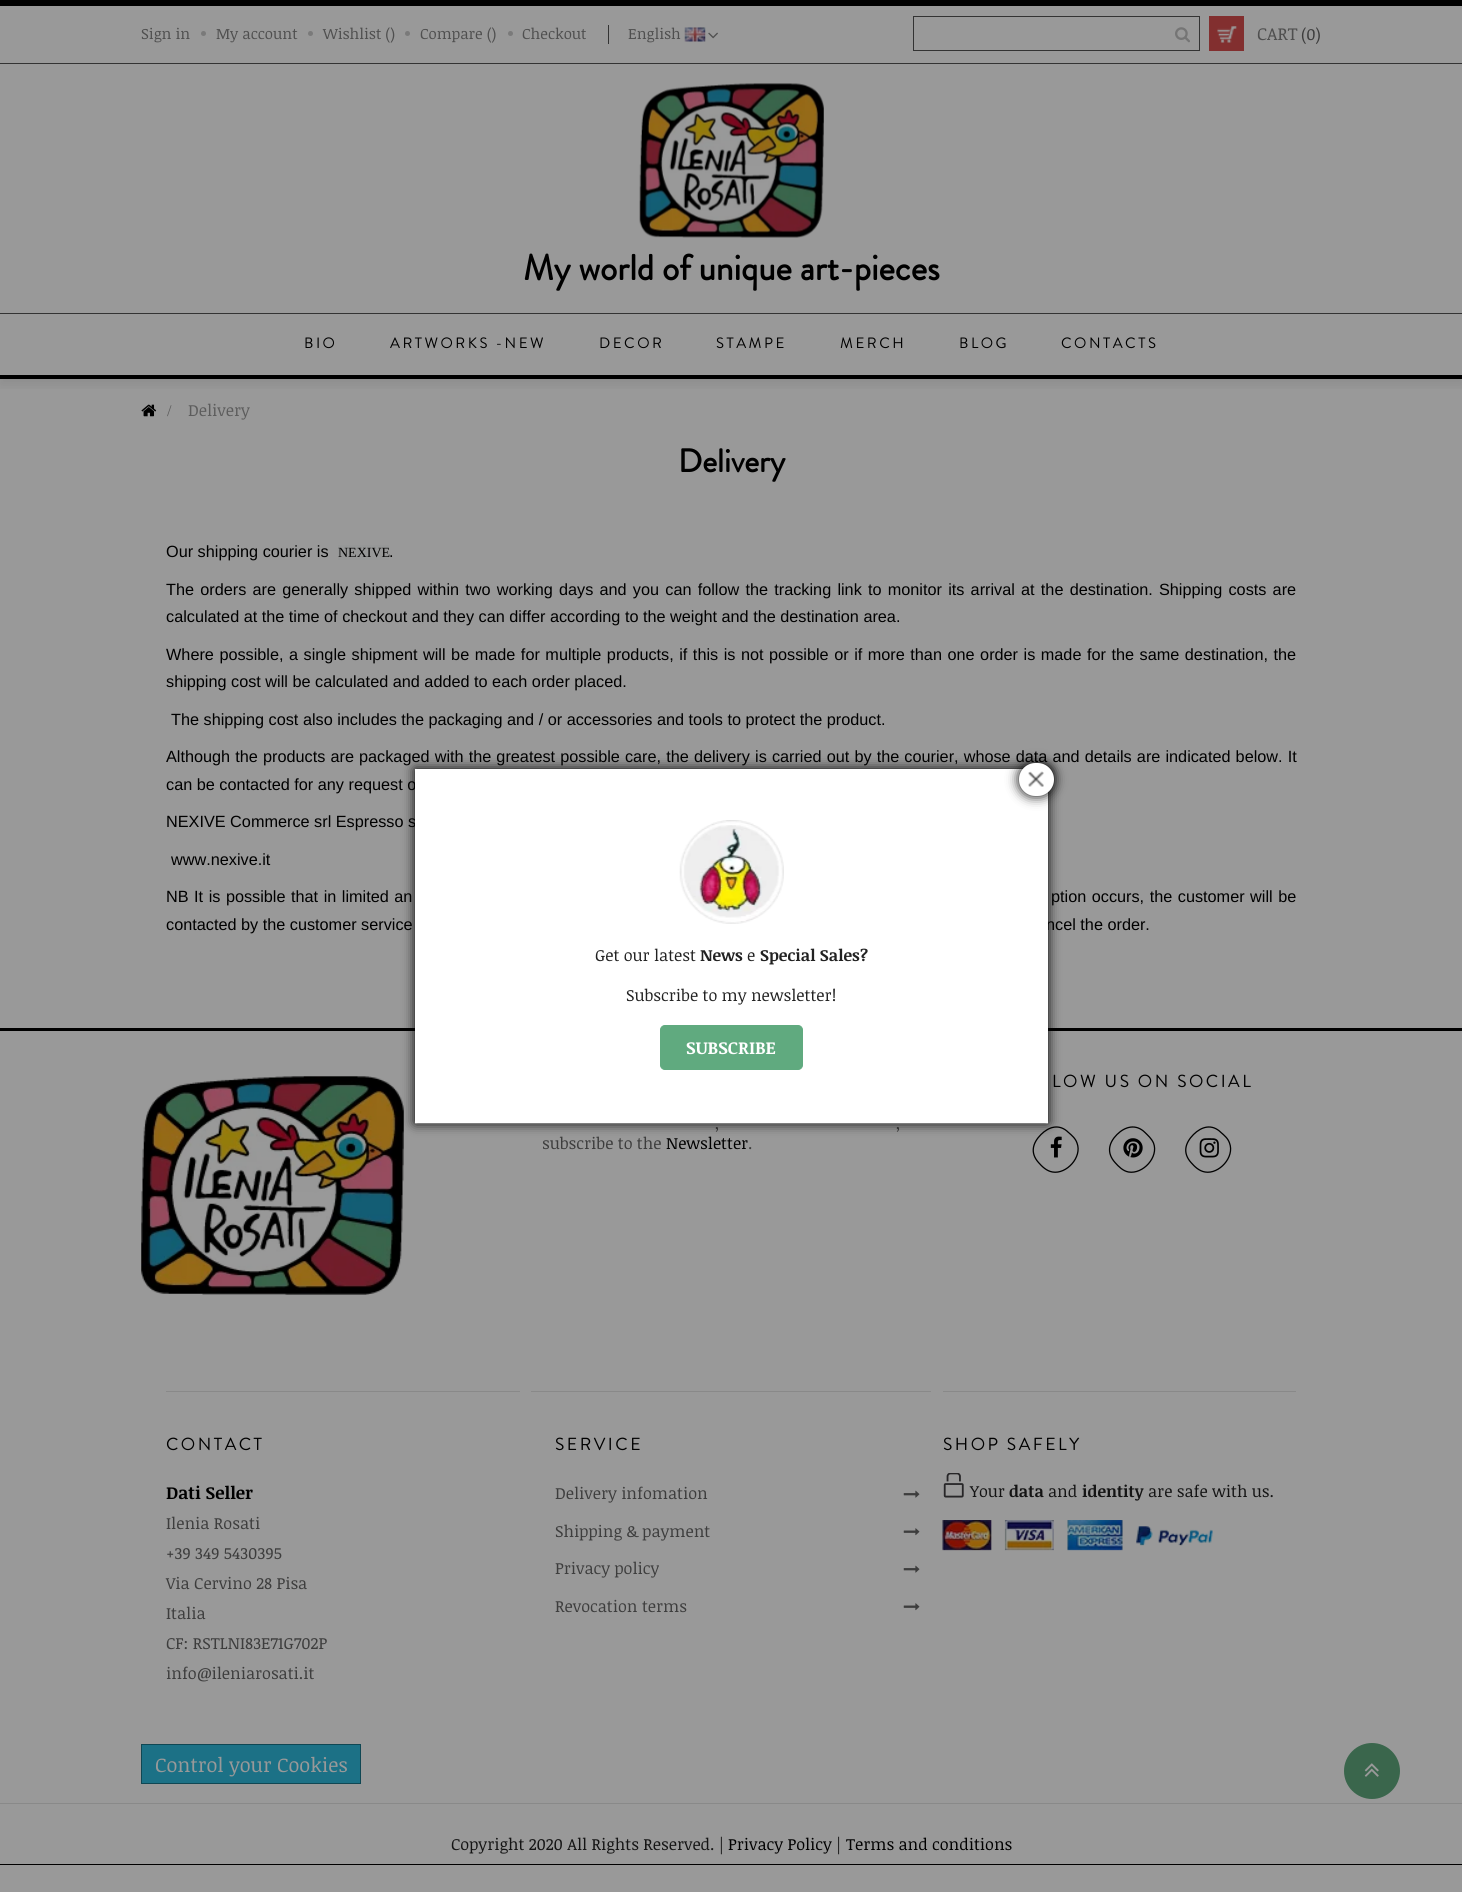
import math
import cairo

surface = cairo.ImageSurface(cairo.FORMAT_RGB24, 1462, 1892)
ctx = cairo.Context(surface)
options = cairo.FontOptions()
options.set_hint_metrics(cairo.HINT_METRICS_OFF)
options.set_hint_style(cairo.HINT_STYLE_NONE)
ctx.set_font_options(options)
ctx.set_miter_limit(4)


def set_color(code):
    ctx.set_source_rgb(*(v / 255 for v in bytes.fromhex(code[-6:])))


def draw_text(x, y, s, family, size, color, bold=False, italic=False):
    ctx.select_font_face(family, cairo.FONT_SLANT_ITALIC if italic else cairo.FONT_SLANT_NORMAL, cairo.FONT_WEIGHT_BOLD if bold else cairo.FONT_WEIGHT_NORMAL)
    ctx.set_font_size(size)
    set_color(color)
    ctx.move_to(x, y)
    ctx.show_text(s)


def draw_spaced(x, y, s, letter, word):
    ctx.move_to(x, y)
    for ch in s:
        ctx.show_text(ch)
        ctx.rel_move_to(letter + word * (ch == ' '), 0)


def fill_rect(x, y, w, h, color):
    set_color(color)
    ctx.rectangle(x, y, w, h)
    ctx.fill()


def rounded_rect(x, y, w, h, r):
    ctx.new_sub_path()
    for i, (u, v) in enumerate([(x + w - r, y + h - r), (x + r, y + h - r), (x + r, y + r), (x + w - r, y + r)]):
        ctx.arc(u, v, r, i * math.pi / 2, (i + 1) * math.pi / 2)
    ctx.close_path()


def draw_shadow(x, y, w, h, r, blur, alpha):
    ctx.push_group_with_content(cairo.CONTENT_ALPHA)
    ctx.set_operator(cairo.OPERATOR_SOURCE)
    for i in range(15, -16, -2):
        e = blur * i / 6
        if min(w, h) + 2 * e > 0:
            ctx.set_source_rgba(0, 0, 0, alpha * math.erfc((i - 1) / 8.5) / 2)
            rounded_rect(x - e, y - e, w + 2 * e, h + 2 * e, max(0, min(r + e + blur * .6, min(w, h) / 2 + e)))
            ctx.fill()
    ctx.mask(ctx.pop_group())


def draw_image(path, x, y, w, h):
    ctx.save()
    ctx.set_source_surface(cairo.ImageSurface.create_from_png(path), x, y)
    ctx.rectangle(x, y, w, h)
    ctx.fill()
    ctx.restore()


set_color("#999999")
ctx.paint()
ctx.save()
ctx.rectangle(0, 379, 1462, 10)
ctx.clip()
set_color("#000000")
draw_shadow(0, 6, 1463, 379, 0, 6, 0.08)
ctx.restore()
fill_rect(0, 0, 1462, 6, "#000000")
fill_rect(0, 63, 1462, 1, "#333333")
draw_text(141, 39, "Sign in", "Noticia Text", 15, "#4f4f4f")
set_color("#7a7a7a")
ctx.new_path()
ctx.arc(203.5, 33.5, 2.5, 0, 2 * math.pi)
ctx.fill()
draw_text(216, 39, "My account", "Noticia Text", 15, "#4f4f4f")
set_color("#7a7a7a")
ctx.new_path()
ctx.arc(310.5, 33.5, 2.5, 0, 2 * math.pi)
ctx.fill()
draw_text(323, 39, "Wishlist ()", "Noticia Text", 15, "#4f4f4f")
set_color("#7a7a7a")
ctx.new_path()
ctx.arc(407.5, 33.5, 2.5, 0, 2 * math.pi)
ctx.fill()
draw_text(420, 39, "Compare ()", "Noticia Text", 15, "#4f4f4f")
set_color("#7a7a7a")
ctx.new_path()
ctx.arc(510.5, 33.5, 2.5, 0, 2 * math.pi)
ctx.fill()
draw_text(522, 39, "Checkout", "Noticia Text", 15, "#4f4f4f")
fill_rect(608, 25, 1, 19, "#333333")
draw_text(628, 39, "English", "Noticia Text", 15, "#4f4f4f")
draw_image("assets/img1.png", 684, 27, 22, 15)
draw_image("assets/img2.png", 708, 32, 10, 7)
ctx.rectangle(913.5, 16.5, 286, 34)
set_color("#333333")
ctx.set_line_width(1)
ctx.stroke()
draw_image("assets/img3.png", 1175, 27, 15, 16)
fill_rect(1209, 16, 35, 35, "#822f2f")
draw_image("assets/img4.png", 1217, 26, 20, 17)
draw_text(1257, 40, "CART", "Noticia Text", 17.5, "#4f4f4f")
draw_text(1301, 40, "(0)", "Noticia Text", 16.25, "#3d3d3d")
fill_rect(0, 375, 1462, 4, "#000000")
draw_image("assets/img5.png", 639, 83, 185, 155)
draw_text(523, 280, "My world of unique art-pieces", "Brandon Grotesque", 35.75, "#000000", bold=True)
fill_rect(0, 313, 1462, 1, "#333333")
ctx.select_font_face("Brandon Grotesque")
ctx.set_font_size(15)
set_color("#000000")
draw_spaced(304, 348, "BIO", 2.5, 0)
draw_spaced(390, 348, "ARTWORKS -NEW", 2.5, 0)
draw_spaced(599, 348, "DECOR", 2.5, 0)
draw_spaced(716, 348, "STAMPE", 2.5, 0)
draw_spaced(840, 348, "MERCH", 2.5, 0)
draw_spaced(959, 348, "BLOG", 2.5, 0)
draw_spaced(1061, 348, "CONTACTS", 2.5, 0)
draw_image("assets/img6.png", 141, 404, 16, 13)
draw_text(167, 416, "/", "Liberation Serif", 16.25, "#5c5c5c")
draw_text(188, 416, "Delivery", "Noticia Text", 16.25, "#5c5c5c")
draw_text(678, 472, "Delivery", "Brandon Grotesque", 32.5, "#000000", bold=True)
draw_text(166, 557, "Our shipping courier is", "Liberation Sans", 16.25, "#000000")
fill_rect(338, 545, 51, 15, "#969797")
draw_text(338, 557, "NEXIVE", "Liberation Serif", 14, "#000000")
draw_text(389, 557, ".", "Liberation Sans", 16.25, "#000000")
draw_spaced(166, 595, "The orders are generally shipped within two working days and you can follow the tracking link to monitor its arrival at the destination. Shipping costs are", 0, 1.7)
draw_text(166, 622, "calculated at the time of checkout and they can differ according to the weight and the destination area.", "Liberation Sans", 16.25, "#000000")
draw_spaced(166, 660, "Where possible, a single shipment will be made for multiple products, if this is not possible or if more than one order is made for the same destination, the", 0, 1)
draw_text(166, 687, "shipping cost will be calculated and added to each order placed.", "Liberation Sans", 16.25, "#000000")
draw_text(171, 725, "The shipping cost also includes the packaging and / or accessories and tools to protect the product.", "Liberation Sans", 16.25, "#000000")
draw_spaced(166, 762, "Although the products are packaged with the greatest possible care, the delivery is carried out by the courier, whose data and details are indicated below. It", 0, 0.6)
draw_text(166, 790, "can be contacted for any request o", "Liberation Sans", 16.25, "#000000")
draw_text(166, 827, "NEXIVE Commerce srl Espresso s", "Liberation Sans", 16.25, "#000000")
draw_text(171, 865, "www.nexive.it", "Liberation Sans", 16.25, "#000000")
draw_spaced(166, 902, "NB It is possible that in limited an", 0, 1)
draw_spaced(1051, 902, "ption occurs, the customer will be", 0, 1)
draw_text(166, 930, "contacted by the customer service", "Liberation Sans", 16.25, "#000000")
draw_text(1046, 930, "ncel the order.", "Liberation Sans", 16.25, "#000000")
fill_rect(0, 1028, 1462, 3, "#000000")
draw_image("assets/img7.png", 141, 1076, 263, 219)
draw_text(715, 1129, ",", "Noticia Text", 16.25, "#3d3d3d")
draw_text(896, 1129, ",", "Noticia Text", 16.25, "#3d3d3d")
draw_text(542, 1149, "subscribe to the", "Noticia Text", 16.25, "#3d3d3d")
draw_text(666, 1149, "Newsletter", "Noticia Text", 16.25, "#000000")
draw_text(748, 1149, ".", "Noticia Text", 16.25, "#3d3d3d")
ctx.select_font_face("Brandon Grotesque")
ctx.set_font_size(17.5)
set_color("#000000")
draw_spaced(1052, 1087, "LOW US ON SOCIAL", 2.5, 0)
ctx.new_path()
ctx.move_to(1068.5, 1132.5)
ctx.curve_to(1072, 1135.5, 1075.5, 1138.5, 1077, 1143)
ctx.curve_to(1082.5, 1157, 1066.5, 1174.5, 1052.5, 1172)
ctx.curve_to(1046.5, 1171, 1042, 1166.5, 1038.5, 1162.5)
ctx.curve_to(1030, 1153, 1032.5, 1143, 1041, 1134.5)
ctx.curve_to(1049, 1126.5, 1059.5, 1123.5, 1068.5, 1132.5)
ctx.close_path()
ctx.set_line_width(1.3)
ctx.stroke()
draw_image("assets/img8.png", 1050, 1136, 12, 22)
ctx.new_path()
ctx.move_to(1145, 1132.5)
ctx.curve_to(1148, 1135.5, 1151.5, 1138.5, 1153.5, 1143)
ctx.curve_to(1159, 1157, 1143, 1174.5, 1128.5, 1172)
ctx.curve_to(1123, 1171, 1118.5, 1166.5, 1115, 1162.5)
ctx.curve_to(1106.5, 1153, 1108.5, 1143, 1117, 1134.5)
ctx.curve_to(1125, 1126.5, 1136, 1123.5, 1145, 1132.5)
ctx.close_path()
ctx.stroke()
draw_image("assets/img9.png", 1123, 1138, 20, 20)
ctx.new_path()
ctx.move_to(1221, 1132.5)
ctx.curve_to(1224.5, 1135.5, 1228, 1138.5, 1229.5, 1143)
ctx.curve_to(1235, 1157, 1219, 1174.5, 1205, 1172)
ctx.curve_to(1199, 1171, 1194.5, 1166.5, 1191, 1162.5)
ctx.curve_to(1182.5, 1153, 1185, 1143, 1193.5, 1134.5)
ctx.curve_to(1201.5, 1126.5, 1212, 1123.5, 1221, 1132.5)
ctx.close_path()
ctx.stroke()
draw_image("assets/img10.png", 1199, 1138, 20, 20)
fill_rect(166, 1391, 354, 1, "#898989")
set_color("#000000")
draw_spaced(166, 1450, "CONTACT", 2.5, 0)
draw_text(166, 1499, "Dati Seller", "Noticia Text", 17.5, "#000000", bold=True)
draw_text(166, 1529, "Ilenia Rosati", "Noticia Text", 16.25, "#3d3d3d")
draw_text(166, 1559, "+39 349 5430395", "Noticia Text", 16.25, "#3d3d3d")
draw_text(166, 1589, "Via Cervino 28 Pisa", "Noticia Text", 16.25, "#3d3d3d")
draw_text(166, 1619, "Italia", "Noticia Text", 16.25, "#3d3d3d")
draw_text(166, 1649, "CF: RSTLNI83E71G702P", "Noticia Text", 16.25, "#3d3d3d")
draw_text(166, 1679, "info@ileniarosati.it", "Noticia Text", 16.25, "#3d3d3d")
fill_rect(531, 1391, 400, 1, "#898989")
ctx.select_font_face("Brandon Grotesque")
ctx.set_font_size(17.5)
set_color("#000000")
draw_spaced(555, 1450, "SERVICE", 2.5, 0)
draw_text(555, 1499, "Delivery infomation", "Noticia Text", 16.25, "#3d3d3d")
draw_image("assets/img11.png", 903, 1490, 17, 8)
draw_text(555, 1537, "Shipping & payment", "Noticia Text", 16.25, "#3d3d3d")
draw_image("assets/img12.png", 903, 1528, 17, 8)
draw_text(555, 1574, "Privacy policy", "Noticia Text", 16.25, "#3d3d3d")
draw_image("assets/img11.png", 903, 1565, 17, 8)
draw_text(555, 1612, "Revocation terms", "Noticia Text", 16.25, "#3d3d3d")
draw_image("assets/img12.png", 903, 1603, 17, 8)
fill_rect(943, 1391, 353, 1, "#898989")
ctx.select_font_face("Brandon Grotesque")
ctx.set_font_size(17.5)
set_color("#000000")
draw_spaced(943, 1450, "SHOP SAFELY", 2.5, 0)
draw_image("assets/img13.png", 943, 1473, 21, 25)
draw_text(970, 1497, "Your", "Noticia Text", 16.25, "#141414")
draw_text(1009, 1497, "data", "Noticia Text", 16.25, "#141414", bold=True)
draw_text(1048, 1497, "and", "Noticia Text", 16.25, "#141414")
draw_text(1082, 1497, "identity", "Noticia Text", 16.25, "#141414", bold=True)
draw_text(1148, 1497, "are safe with us.", "Noticia Text", 16.25, "#141414")
draw_image("assets/img14.png", 942, 1520, 271, 31)
set_color("#1c7186")
ctx.rectangle(141.5, 1744.5, 219, 39)
ctx.fill_preserve()
set_color("#104753")
ctx.set_line_width(1)
ctx.stroke()
draw_text(155, 1772, "Control your Cookies", "Noticia Text", 20, "#999999")
fill_rect(0, 1803, 1462, 1, "#898989")
fill_rect(0, 1864, 1462, 1, "#000000")
draw_text(451, 1850, "Copyright 2020 All Rights Reserved. |", "Noticia Text", 16.25, "#141414")
draw_text(728, 1850, "Privacy Policy", "Noticia Text", 16.25, "#000000")
draw_text(836, 1850, "|", "Noticia Text", 16.25, "#141414")
draw_text(846, 1850, "Terms and conditions", "Noticia Text", 16.25, "#000000")
set_color("#3a664c")
ctx.new_path()
ctx.arc(1372, 1771, 28, 0, 2 * math.pi)
ctx.fill()
draw_image("assets/img15.png", 1364, 1763, 15, 14)
set_color("#ffffff")
ctx.new_path()
ctx.move_to(415, 1123)
ctx.line_to(1048, 1123)
ctx.curve_to(1048, 1123.5, 1047.5, 1124, 1047, 1124)
ctx.line_to(416, 1124)
ctx.curve_to(415.5, 1124, 415, 1123.5, 415, 1123)
ctx.close_path()
ctx.fill()
set_color("#000000")
draw_shadow(415, 769, 633, 354, 0, 6, 1)
fill_rect(415, 769, 633, 354, "#ffffff")
set_color("#000000")
draw_shadow(1019, 763, 35, 33, 16.5, 6, 1)
set_color("#ffffff")
rounded_rect(1019, 763, 35, 33, 16.5)
ctx.fill()
draw_image("assets/img16.png", 1028, 771, 16, 16)
draw_image("assets/img17.png", 679, 820, 105, 104)
draw_text(595, 961, "Get our latest", "Noticia Text", 16.25, "#222222")
draw_text(700, 961, "News", "Noticia Text", 16.25, "#222222", bold=True)
draw_text(747, 961, "e", "Noticia Text", 16.25, "#222222")
draw_text(760, 961, "Special Sales?", "Noticia Text", 16.25, "#222222", bold=True)
draw_text(626, 1001, "Subscribe to my newsletter!", "Noticia Text", 16.25, "#222222")
set_color("#60aa7f")
rounded_rect(660.5, 1025.5, 142, 44, 4.5)
ctx.fill_preserve()
ctx.stroke()
draw_text(686, 1054, "SUBSCRIBE", "Noticia Text", 17.5, "#ffffff", bold=True)
surface.write_to_png("output.png")
